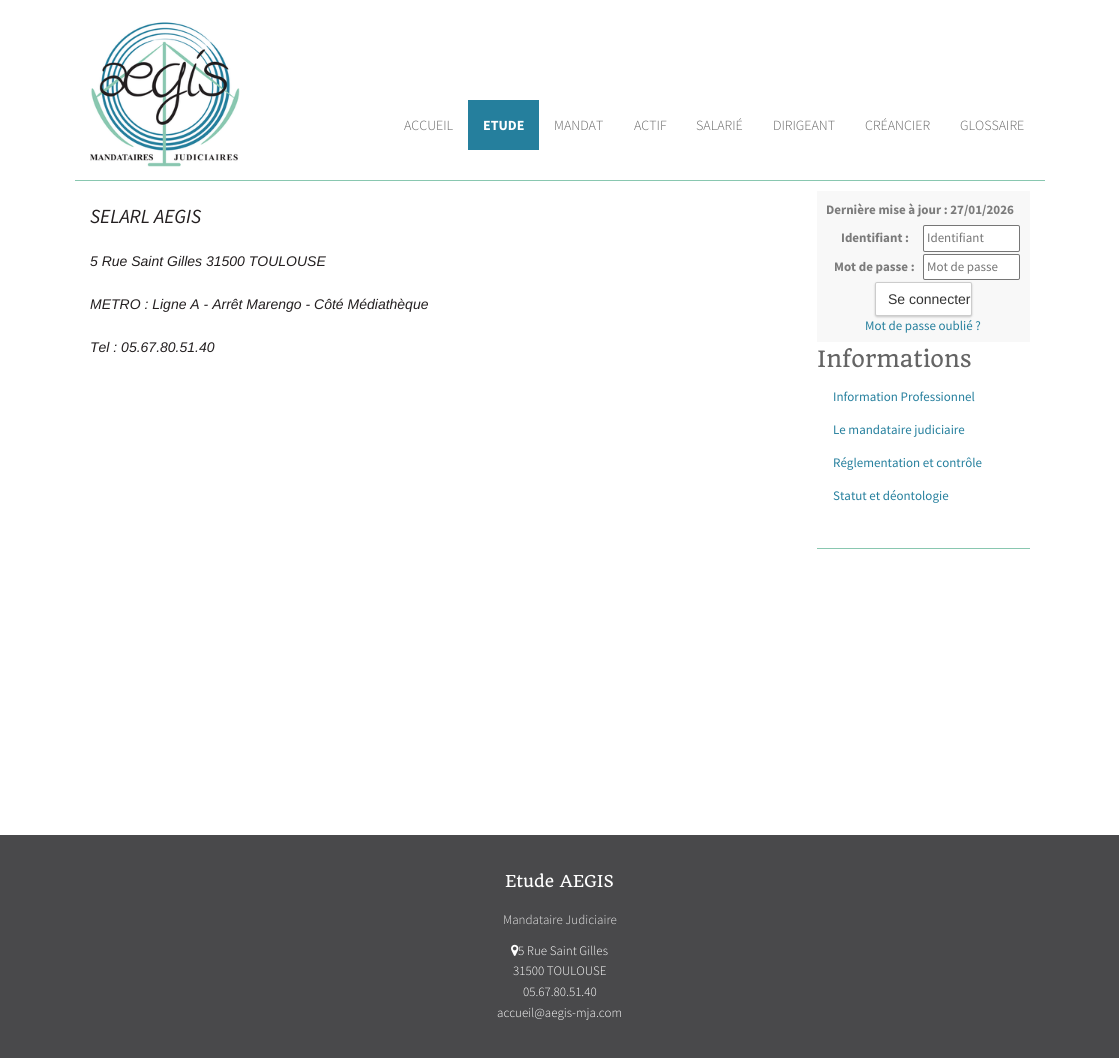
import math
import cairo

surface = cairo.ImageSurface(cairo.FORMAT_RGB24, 1119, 1058)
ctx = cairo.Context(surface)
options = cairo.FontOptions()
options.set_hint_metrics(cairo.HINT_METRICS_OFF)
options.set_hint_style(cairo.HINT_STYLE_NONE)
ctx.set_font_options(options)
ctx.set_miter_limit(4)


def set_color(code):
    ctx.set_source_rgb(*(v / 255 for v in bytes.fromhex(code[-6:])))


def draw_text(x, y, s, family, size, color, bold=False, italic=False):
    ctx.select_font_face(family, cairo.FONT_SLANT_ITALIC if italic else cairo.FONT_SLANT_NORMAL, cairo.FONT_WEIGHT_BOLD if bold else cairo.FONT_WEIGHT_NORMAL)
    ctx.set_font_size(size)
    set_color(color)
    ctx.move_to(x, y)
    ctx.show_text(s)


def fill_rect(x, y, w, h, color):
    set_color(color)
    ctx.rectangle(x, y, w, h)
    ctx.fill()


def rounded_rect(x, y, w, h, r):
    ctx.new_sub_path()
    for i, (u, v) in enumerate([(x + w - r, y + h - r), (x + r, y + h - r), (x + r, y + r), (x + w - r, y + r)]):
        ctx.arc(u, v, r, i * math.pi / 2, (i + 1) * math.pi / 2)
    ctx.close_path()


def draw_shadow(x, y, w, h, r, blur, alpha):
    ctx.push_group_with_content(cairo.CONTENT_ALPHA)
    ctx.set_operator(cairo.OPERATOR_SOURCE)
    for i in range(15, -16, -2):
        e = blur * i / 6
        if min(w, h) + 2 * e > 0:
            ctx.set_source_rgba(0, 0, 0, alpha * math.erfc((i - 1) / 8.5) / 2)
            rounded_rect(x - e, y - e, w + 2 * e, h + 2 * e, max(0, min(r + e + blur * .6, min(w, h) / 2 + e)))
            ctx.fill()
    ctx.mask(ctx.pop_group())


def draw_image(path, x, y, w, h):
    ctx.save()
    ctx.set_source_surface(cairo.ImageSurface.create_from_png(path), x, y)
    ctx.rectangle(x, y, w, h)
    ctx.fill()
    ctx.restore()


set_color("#ffffff")
ctx.paint()
fill_rect(75, 180, 970, 1, "#89c7b0")
draw_image("assets/img1.png", 90, 22, 150, 145)
draw_text(404, 130, "ACCUEIL", "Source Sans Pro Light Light", 14, "#656565")
fill_rect(468, 100, 71, 50, "#257f9d")
draw_text(483, 130, "ETUDE", "Source Sans Pro", 14, "#ffffff", bold=True)
draw_text(554, 130, "MANDAT", "Source Sans Pro Light Light", 14, "#656565")
draw_text(634, 130, "ACTIF", "Source Sans Pro Light Light", 14, "#656565")
draw_text(696, 130, "SALARIÉ", "Source Sans Pro Light Light", 14, "#656565")
draw_text(773, 130, "DIRIGEANT", "Source Sans Pro Light Light", 14, "#656565")
draw_text(865, 130, "CRÉANCIER", "Source Sans Pro Light Light", 14, "#656565")
draw_text(960, 130, "GLOSSAIRE", "Source Sans Pro Light Light", 14, "#656565")
draw_text(90, 223, "SELARL AEGIS", "Source Sans Pro", 20, "#231f20", italic=True)
draw_text(90, 266, "5 Rue Saint Gilles 31500 TOULOUSE", "Liberation Sans", 14, "#231f20", italic=True)
draw_text(90, 309, "METRO : Ligne A - Arrêt Marengo - Côté Médiathèque", "Liberation Sans", 14, "#231f20", italic=True)
draw_text(90, 352, "Tel : 05.67.80.51.40", "Liberation Sans", 14, "#231f20", italic=True)
fill_rect(817, 191, 213, 151, "#f8f8f8")
draw_text(826, 214, "Dernière mise à jour : 27/01/2026", "Source Sans Pro", 13, "#7b7b7b", bold=True)
draw_text(841, 242, "Identifiant :", "Source Sans Pro", 13, "#7b7b7b", bold=True)
set_color("#ffffff")
rounded_rect(923.5, 225.5, 96, 26, 1.5)
ctx.fill_preserve()
set_color("#767676")
ctx.set_line_width(1)
ctx.stroke()
draw_text(927, 242, "Identifiant", "Source Sans Pro", 13, "#757575")
draw_text(834, 271, "Mot de passe :", "Source Sans Pro", 13, "#7b7b7b", bold=True)
set_color("#ffffff")
rounded_rect(923.5, 254.5, 96, 25, 1.5)
ctx.fill_preserve()
set_color("#767676")
ctx.stroke()
draw_text(927, 271, "Mot de passe", "Source Sans Pro", 13, "#757575")
set_color("#000000")
draw_shadow(875, 283, 97, 34, 2, 1, 0.2)
set_color("#ffffff")
rounded_rect(875.5, 282.5, 96, 33, 1.5)
ctx.fill_preserve()
set_color("#cccccc")
ctx.stroke()
draw_text(888, 304, "Se connecter", "Liberation Sans", 14, "#333333")
draw_text(865, 330, "Mot de passe oublié ?", "Source Sans Pro", 13, "#257f9d")
fill_rect(817, 548, 213, 1, "#89c7b0")
draw_text(817, 367, "Informations", "Quando", 22, "#656565")
draw_text(833, 401, "Information Professionnel", "Source Sans Pro", 13, "#257f9d")
draw_text(833, 434, "Le mandataire judiciaire", "Source Sans Pro", 13, "#257f9d")
draw_text(833, 467, "Réglementation et contrôle", "Source Sans Pro", 13, "#257f9d")
draw_text(833, 500, "Statut et déontologie", "Source Sans Pro", 13, "#257f9d")
fill_rect(0, 835, 1119, 223, "#49494b")
draw_text(505, 887, "Etude AEGIS", "Quando", 16, "#ffffff")
draw_text(503, 924, "Mandataire Judiciaire", "Source Sans Pro Light Light", 13, "#eaeaea")
draw_image("assets/img2.png", 511, 944, 8, 12)
draw_text(518, 955, "5 Rue Saint Gilles", "Source Sans Pro Light Light", 13, "#ffffff")
draw_text(513, 975, "31500 TOULOUSE", "Source Sans Pro Light Light", 13, "#ffffff")
draw_text(523, 996, "05.67.80.51.40", "Source Sans Pro Light Light", 13, "#ffffff")
draw_text(497, 1017, "accueil@aegis-mja.com", "Source Sans Pro Light Light", 13, "#ffffff")
surface.write_to_png("output.png")
